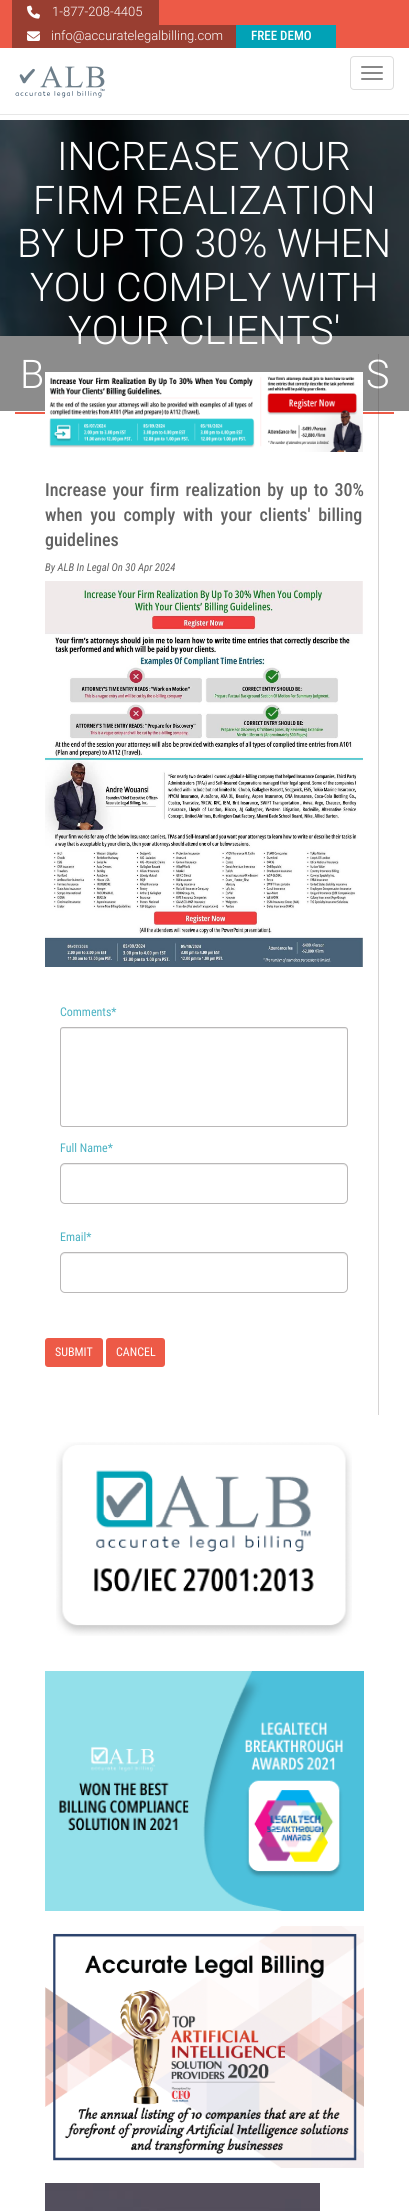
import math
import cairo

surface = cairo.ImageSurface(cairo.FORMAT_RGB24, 409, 2211)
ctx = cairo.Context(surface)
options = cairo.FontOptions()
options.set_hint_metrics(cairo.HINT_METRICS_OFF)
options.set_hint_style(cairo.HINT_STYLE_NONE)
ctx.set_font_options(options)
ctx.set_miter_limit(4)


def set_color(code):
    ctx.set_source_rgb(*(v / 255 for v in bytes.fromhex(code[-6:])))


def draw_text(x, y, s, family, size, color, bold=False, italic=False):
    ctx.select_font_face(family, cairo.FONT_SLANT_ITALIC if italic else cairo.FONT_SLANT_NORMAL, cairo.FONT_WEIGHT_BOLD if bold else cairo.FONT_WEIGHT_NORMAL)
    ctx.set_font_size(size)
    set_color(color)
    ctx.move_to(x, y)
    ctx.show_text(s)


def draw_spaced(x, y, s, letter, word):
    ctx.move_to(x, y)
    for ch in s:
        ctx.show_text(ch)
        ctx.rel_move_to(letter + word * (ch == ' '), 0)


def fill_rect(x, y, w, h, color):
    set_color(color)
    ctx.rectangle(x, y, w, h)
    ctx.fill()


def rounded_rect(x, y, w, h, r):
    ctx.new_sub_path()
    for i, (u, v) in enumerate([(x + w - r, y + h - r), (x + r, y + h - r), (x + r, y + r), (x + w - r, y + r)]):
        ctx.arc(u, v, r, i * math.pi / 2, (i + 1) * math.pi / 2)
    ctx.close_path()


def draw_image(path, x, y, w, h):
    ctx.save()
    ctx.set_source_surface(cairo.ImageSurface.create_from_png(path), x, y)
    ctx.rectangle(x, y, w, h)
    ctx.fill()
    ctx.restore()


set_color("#ffffff")
ctx.paint()
fill_rect(0, 336, 409, 75, "#8c8c8c")
fill_rect(0, 0, 409, 48, "#ed5a47")
fill_rect(12, 0, 147, 25, "#993e31")
draw_image("assets/img1.png", 27, 5, 13, 14)
draw_text(52, 16, "1-877-208-4405", "Roboto Light", 13, "#ffffff")
fill_rect(12, 25, 224, 23, "#993e31")
draw_image("assets/img2.png", 27, 31, 13, 10)
draw_text(51, 40, "info@accuratelegalbilling.com", "Roboto Light", 13, "#ffffff")
fill_rect(236, 25, 100, 23, "#01a2b6")
draw_text(251, 40, "FREE DEMO", "Roboto Condensed Medium", 13, "#ffffff")
fill_rect(0, 114, 409, 1, "#e7e7e7")
draw_image("assets/img3.png", 15, 66, 90, 32)
rounded_rect(350.5, 56.5, 43, 33, 3.5)
set_color("#dddddd")
ctx.set_line_width(1)
ctx.stroke()
set_color("#888888")
rounded_rect(361, 66, 22, 2, 1)
ctx.fill()
rounded_rect(361, 72, 22, 2, 1)
ctx.fill()
rounded_rect(361, 78, 22, 2, 1)
ctx.fill()
draw_image("assets/img4.png", 0, 120, 409, 216)
draw_text(57, 170, "INCREASE YOUR", "Roboto Light", 39.5, "#ffffff")
draw_text(33, 214, "FIRM REALIZATION", "Roboto Light", 39.5, "#ffffff")
draw_text(17, 257, "BY UP TO 30% WHEN", "Roboto Light", 39.5, "#ffffff")
draw_text(30, 301, "YOU COMPLY WITH", "Roboto Light", 39.5, "#ffffff")
draw_text(68, 344, "YOUR CLIENTS'", "Roboto Light", 39.5, "#ffffff")
draw_text(20, 388, "B", "Roboto Light", 39.5, "#ffffff")
draw_text(366, 388, "S", "Roboto Light", 39.5, "#ffffff")
fill_rect(15, 412, 379, 2, "#ed5a47")
ctx.set_source_rgba(0.278, 0.247, 0.247, 0.22)
ctx.rectangle(378, 354, 1, 1061)
ctx.fill()
draw_image("assets/img5.png", 45, 372, 318, 80)
ctx.select_font_face("Roboto Condensed Medium")
ctx.set_font_size(18)
set_color("#626262")
draw_spaced(45, 496, "Increase your firm realization by up to 30%", 0, 2)
draw_spaced(45, 521, "when you comply with your clients' billing", 0, 3.5)
draw_text(45, 546, "guidelines", "Roboto Condensed Medium", 18, "#626262")
draw_text(45, 571, "By ALB In Legal On 30 Apr 2024", "Roboto Condensed", 10.75, "#626262", italic=True)
draw_image("assets/img6.png", 45, 581, 318, 386)
draw_text(60, 1016, "Comments*", "Roboto Condensed", 12, "#4bb2c3")
set_color("#ececec")
ctx.new_path()
ctx.move_to(63, 1029)
ctx.line_to(345, 1029)
ctx.curve_to(346, 1029, 347, 1030, 347, 1031)
ctx.curve_to(347, 1030, 347, 1028, 345, 1028)
ctx.line_to(63, 1028)
ctx.curve_to(61, 1028, 61, 1030, 61, 1031)
ctx.curve_to(61, 1030, 62, 1029, 63, 1029)
ctx.close_path()
ctx.fill()
rounded_rect(60.5, 1027.5, 287, 99, 2.5)
ctx.set_source_rgba(0.565, 0.549, 0.549, 0.62)
ctx.stroke()
draw_text(60, 1152, "Full Name*", "Roboto Condensed", 12, "#4bb2c3")
set_color("#ececec")
ctx.new_path()
ctx.move_to(65, 1165)
ctx.line_to(343, 1165)
ctx.curve_to(345, 1165, 347, 1167, 347, 1169)
ctx.curve_to(347, 1166, 346, 1164, 343, 1164)
ctx.line_to(65, 1164)
ctx.curve_to(62, 1164, 61, 1166, 61, 1169)
ctx.curve_to(61, 1167, 63, 1165, 65, 1165)
ctx.close_path()
ctx.fill()
rounded_rect(60.5, 1163.5, 287, 40, 4.5)
ctx.set_source_rgba(0.565, 0.549, 0.549, 0.62)
ctx.stroke()
draw_text(60, 1241, "Email*", "Roboto Condensed", 12, "#4bb2c3")
set_color("#ececec")
ctx.new_path()
ctx.move_to(65, 1254)
ctx.line_to(343, 1254)
ctx.curve_to(345, 1254, 347, 1256, 347, 1258)
ctx.curve_to(347, 1255, 346, 1253, 343, 1253)
ctx.line_to(65, 1253)
ctx.curve_to(62, 1253, 61, 1255, 61, 1258)
ctx.curve_to(61, 1256, 63, 1254, 65, 1254)
ctx.close_path()
ctx.fill()
rounded_rect(60.5, 1252.5, 287, 40, 4.5)
ctx.set_source_rgba(0.565, 0.549, 0.549, 0.62)
ctx.stroke()
set_color("#ed5a47")
rounded_rect(45, 1338, 58, 29, 3)
ctx.fill()
draw_text(55, 1356, "SUBMIT", "Roboto Condensed", 12, "#ffffff")
set_color("#ed5a47")
rounded_rect(106, 1338, 59, 29, 3)
ctx.fill()
draw_text(116, 1356, "CANCEL", "Roboto Condensed", 12, "#ffffff")
draw_image("assets/img7.png", 56, 1442, 296, 194)
draw_image("assets/img8.png", 45, 1671, 319, 240)
draw_image("assets/img9.png", 45, 1926, 319, 242)
draw_image("assets/img10.png", 45, 2183, 275, 28)
surface.write_to_png("output.png")
